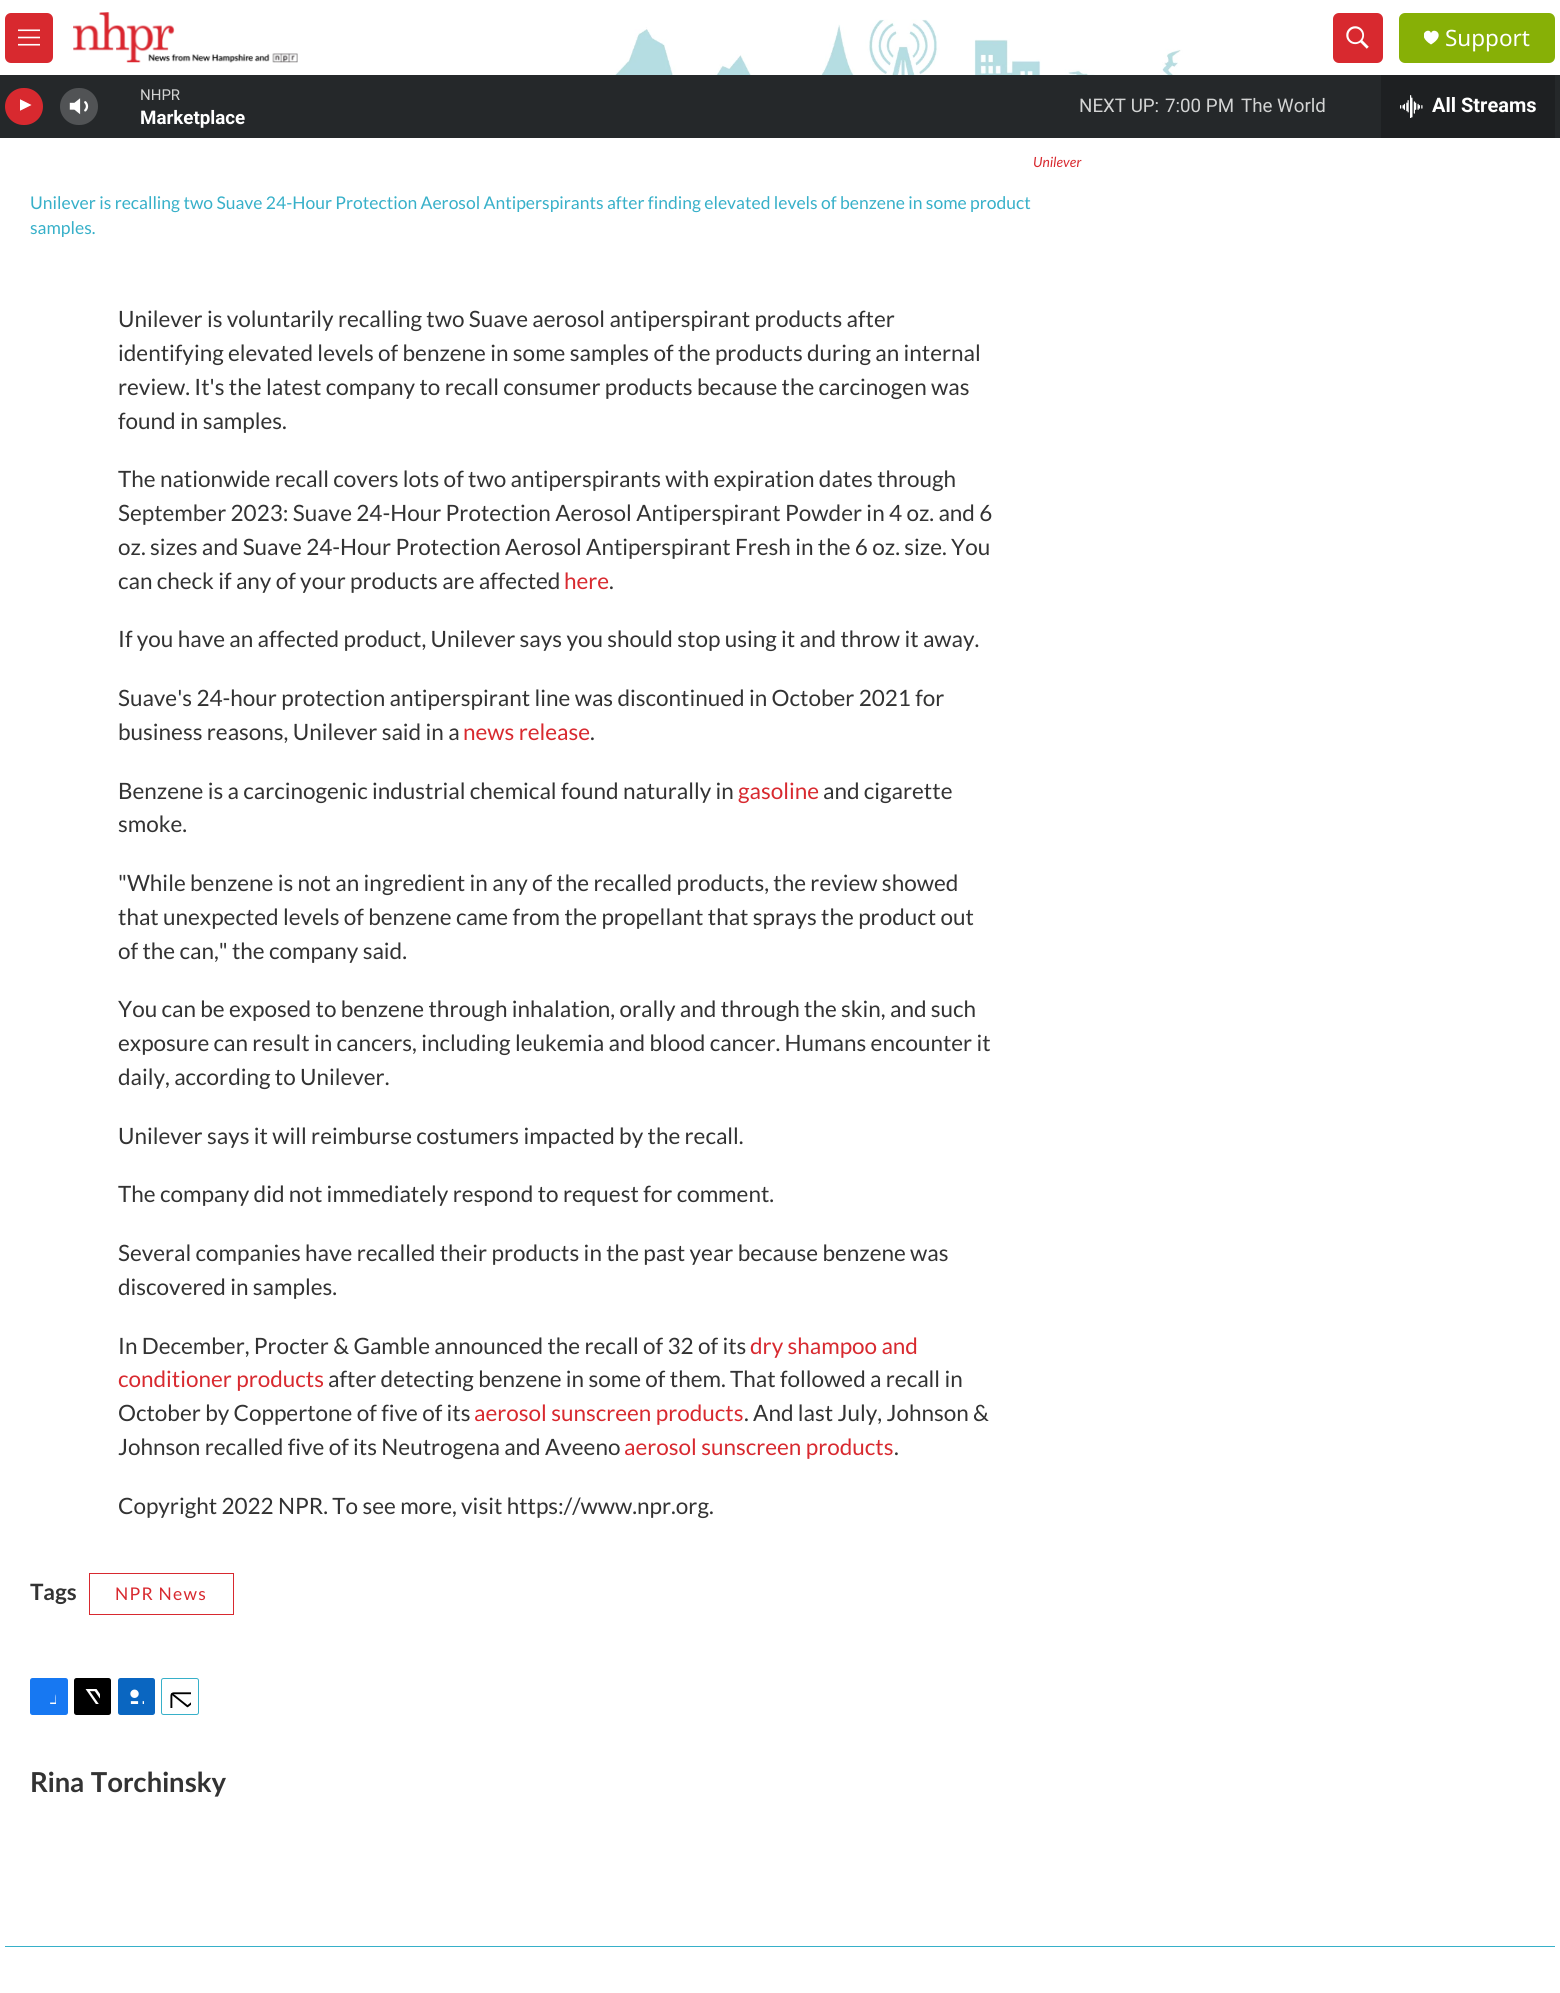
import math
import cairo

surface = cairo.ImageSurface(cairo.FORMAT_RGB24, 1560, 1993)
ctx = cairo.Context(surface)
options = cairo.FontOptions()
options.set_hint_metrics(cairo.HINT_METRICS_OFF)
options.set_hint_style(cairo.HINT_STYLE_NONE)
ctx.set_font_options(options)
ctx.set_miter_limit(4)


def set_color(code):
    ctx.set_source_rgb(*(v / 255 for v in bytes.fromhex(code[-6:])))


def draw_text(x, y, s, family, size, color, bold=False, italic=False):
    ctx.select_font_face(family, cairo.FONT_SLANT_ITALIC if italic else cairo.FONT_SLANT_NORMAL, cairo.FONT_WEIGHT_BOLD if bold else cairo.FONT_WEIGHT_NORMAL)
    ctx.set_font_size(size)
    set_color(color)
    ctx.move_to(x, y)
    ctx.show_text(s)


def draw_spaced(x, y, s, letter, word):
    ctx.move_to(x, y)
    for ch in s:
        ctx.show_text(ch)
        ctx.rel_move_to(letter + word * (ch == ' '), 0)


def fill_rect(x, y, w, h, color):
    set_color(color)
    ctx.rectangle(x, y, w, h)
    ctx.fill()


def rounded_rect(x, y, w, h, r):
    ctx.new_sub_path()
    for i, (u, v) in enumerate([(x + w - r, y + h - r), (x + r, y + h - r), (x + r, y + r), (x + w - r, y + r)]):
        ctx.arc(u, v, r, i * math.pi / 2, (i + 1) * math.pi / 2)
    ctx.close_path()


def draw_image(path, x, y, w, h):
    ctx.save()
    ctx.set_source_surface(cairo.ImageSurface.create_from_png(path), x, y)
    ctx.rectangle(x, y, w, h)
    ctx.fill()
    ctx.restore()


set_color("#ffffff")
ctx.paint()
draw_image("assets/img1.png", 561, 19, 712, 56)
set_color("#d8292f")
rounded_rect(5, 13, 48, 50, 6)
ctx.fill()
draw_image("assets/img2.png", 18, 29, 22, 17)
draw_image("assets/img3.png", 73, 12, 225, 51)
rounded_rect(1333, 13, 50, 50, 6)
ctx.fill()
draw_image("assets/img4.png", 1346, 26, 23, 23)
set_color("#87b006")
rounded_rect(1399, 13, 156, 50, 6)
ctx.fill()
ctx.save()
ctx.rectangle(1424, 30, 15, 15)
ctx.clip()
set_color("#ffffff")
ctx.new_path()
ctx.move_to(1431, 33)
ctx.curve_to(1429, 26.5, 1415.5, 35, 1431, 44.5)
ctx.curve_to(1447, 35, 1433.5, 26.5, 1431, 33)
ctx.close_path()
ctx.fill()
ctx.restore()
draw_text(1445, 46, "Support", "Noto Sans", 22.5, "#ffffff")
fill_rect(0, 75, 1560, 63, "#25282a")
set_color("#d8292f")
rounded_rect(5, 88, 38, 37, 18.5)
ctx.fill()
ctx.save()
ctx.rectangle(20, 98, 14, 18)
ctx.clip()
set_color("#ffffff")
ctx.new_path()
ctx.move_to(19.5, 99)
ctx.line_to(31.5, 105)
ctx.line_to(19.5, 111)
ctx.close_path()
ctx.fill()
ctx.restore()
draw_image("assets/img5.png", 69, 98, 20, 17)
ctx.set_source_rgba(1, 1, 1, 0.2)
rounded_rect(60, 88, 38, 37, 18.5)
ctx.fill()
draw_text(140, 100, "NHPR", "Roboto", 15, "#d3d4d4")
draw_text(140, 124, "Marketplace", "Roboto", 18.75, "#ffffff", bold=True)
draw_text(1079, 112, "NEXT UP:", "Roboto", 18.75, "#d3d4d4")
draw_text(1165, 112, "7:00 PM", "Roboto", 18.75, "#d3d4d4")
draw_text(1241, 112, "The World", "Roboto", 18.75, "#d3d4d4")
fill_rect(1381, 75, 174, 63, "#1e2022")
draw_image("assets/img6.png", 1400, 95, 23, 23)
draw_text(1432, 112, "All Streams", "Roboto", 20, "#ffffff", bold=True)
draw_text(1033, 167, "Unilever", "Lato", 14, "#d8292f", italic=True)
draw_text(30, 209, "Unilever is recalling two Suave 24-Hour Protection Aerosol Antiperspirants after finding elevated levels of benzene in some product", "Lato", 17.5, "#37b0c9")
draw_text(30, 234, "samples.", "Lato", 17.5, "#37b0c9")
draw_text(118, 327, "Unilever is voluntarily recalling two Suave aerosol antiperspirant products after", "Lato", 22.5, "#333333")
draw_text(118, 361, "identifying elevated levels of benzene in some samples of the products during an internal", "Lato", 22.5, "#333333")
draw_text(118, 395, "review. It's the latest company to recall consumer products because the carcinogen was", "Lato", 22.5, "#333333")
draw_text(118, 429, "found in samples.", "Lato", 22.5, "#333333")
draw_text(118, 487, "The nationwide recall covers lots of two antiperspirants with expiration dates through", "Lato", 22.5, "#333333")
draw_text(118, 521, "September 2023: Suave 24-Hour Protection Aerosol Antiperspirant Powder in 4 oz. and 6", "Lato", 22.5, "#333333")
draw_text(118, 555, "oz. sizes and Suave 24-Hour Protection Aerosol Antiperspirant Fresh in the 6 oz. size. You", "Lato", 22.5, "#333333")
draw_text(118, 589, "can check if any of your products are affected", "Lato", 22.5, "#333333")
draw_text(564, 589, "here", "Lato", 22.5, "#d8292f")
draw_text(609, 589, ".", "Lato", 22.5, "#333333")
draw_text(118, 647, "If you have an affected product, Unilever says you should stop using it and throw it away.", "Lato", 22.5, "#333333")
draw_text(118, 706, "Suave's 24-hour protection antiperspirant line was discontinued in October 2021 for", "Lato", 22.5, "#333333")
draw_text(118, 740, "business reasons, Unilever said in a", "Lato", 22.5, "#333333")
draw_text(463, 740, "news release", "Lato", 22.5, "#d8292f")
draw_text(590, 740, ".", "Lato", 22.5, "#333333")
draw_text(118, 799, "Benzene is a carcinogenic industrial chemical found naturally in", "Lato", 22.5, "#333333")
draw_text(738, 799, "gasoline", "Lato", 22.5, "#d8292f")
draw_text(823, 799, "and cigarette", "Lato", 22.5, "#333333")
draw_text(118, 832, "smoke.", "Lato", 22.5, "#333333")
draw_text(118, 891, "\"While benzene is not an ingredient in any of the recalled products, the review showed", "Lato", 22.5, "#333333")
draw_text(118, 925, "that unexpected levels of benzene came from the propellant that sprays the product out", "Lato", 22.5, "#333333")
draw_text(118, 959, "of the can,\" the company said.", "Lato", 22.5, "#333333")
draw_text(118, 1017, "You can be exposed to benzene through inhalation, orally and through the skin, and such", "Lato", 22.5, "#333333")
draw_text(118, 1051, "exposure can result in cancers, including leukemia and blood cancer. Humans encounter it", "Lato", 22.5, "#333333")
draw_text(118, 1085, "daily, according to Unilever.", "Lato", 22.5, "#333333")
draw_text(118, 1144, "Unilever says it will reimburse costumers impacted by the recall.", "Lato", 22.5, "#333333")
draw_text(118, 1202, "The company did not immediately respond to request for comment.", "Lato", 22.5, "#333333")
draw_text(118, 1261, "Several companies have recalled their products in the past year because benzene was", "Lato", 22.5, "#333333")
draw_text(118, 1295, "discovered in samples.", "Lato", 22.5, "#333333")
draw_text(118, 1354, "In December, Procter & Gamble announced the recall of 32 of its", "Lato", 22.5, "#333333")
draw_text(750, 1354, "dry shampoo and", "Lato", 22.5, "#d8292f")
draw_text(118, 1387, "conditioner products", "Lato", 22.5, "#d8292f")
draw_text(328, 1387, "after detecting benzene in some of them. That followed a recall in", "Lato", 22.5, "#333333")
draw_text(118, 1421, "October by Coppertone of five of its", "Lato", 22.5, "#333333")
draw_text(474, 1421, "aerosol sunscreen products", "Lato", 22.5, "#d8292f")
draw_text(744, 1421, ". And last July, Johnson &", "Lato", 22.5, "#333333")
draw_text(118, 1455, "Johnson recalled five of its Neutrogena and Aveeno", "Lato", 22.5, "#333333")
draw_text(624, 1455, "aerosol sunscreen products", "Lato", 22.5, "#d8292f")
draw_text(894, 1455, ".", "Lato", 22.5, "#333333")
draw_text(118, 1514, "Copyright 2022 NPR. To see more, visit https://www.npr.org.", "Lato", 22.5, "#333333")
draw_text(30, 1600, "Tags", "Lato", 22.5, "#333333", bold=True)
ctx.rectangle(89.5, 1573.5, 144, 41)
set_color("#d8292f")
ctx.set_line_width(1)
ctx.stroke()
ctx.select_font_face("Lato")
ctx.set_font_size(17.5)
draw_spaced(115, 1600, "NPR News", 1.25, 0)
set_color("#1778f2")
rounded_rect(30, 1678, 38, 37, 2.5)
ctx.fill()
draw_image("assets/img7.png", 50, 1694, 6, 10)
set_color("#000000")
rounded_rect(74, 1678, 37, 37, 2.5)
ctx.fill()
draw_image("assets/img8.png", 85, 1689, 15, 15)
set_color("#0a66c1")
rounded_rect(118, 1678, 37, 37, 2.5)
ctx.fill()
draw_image("assets/img9.png", 130, 1689, 14, 15)
rounded_rect(161.5, 1678.5, 37, 36, 2)
set_color("#37b0c9")
ctx.stroke()
draw_image("assets/img10.png", 170, 1692, 21, 16)
draw_text(30, 1792, "Rina Torchinsky", "Lato", 27.5, "#333333", bold=True)
fill_rect(5, 1946, 1550, 1, "#37b0c9")
surface.write_to_png("output.png")
